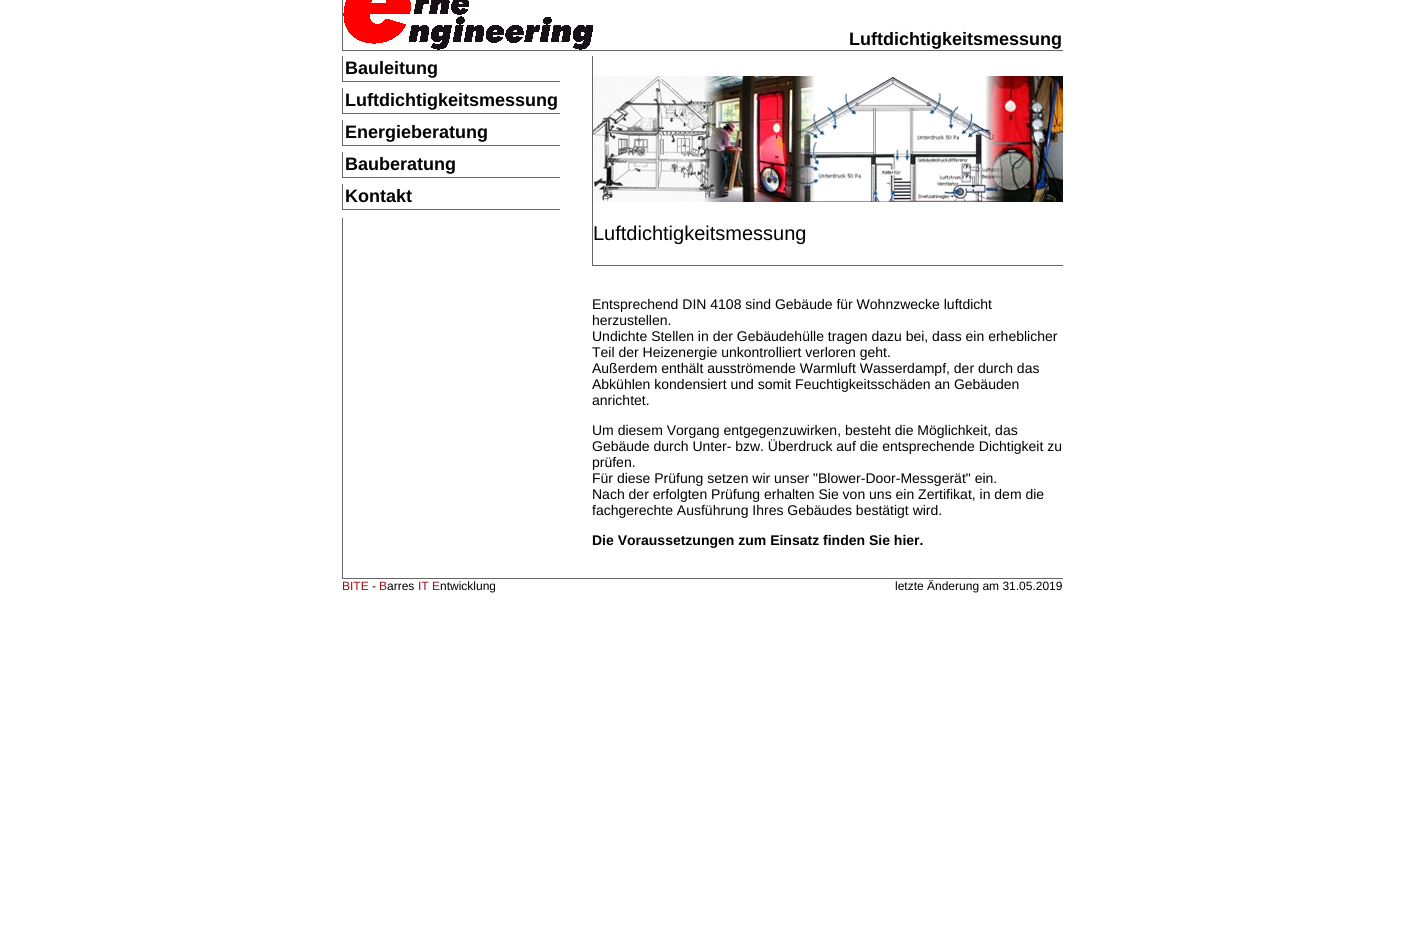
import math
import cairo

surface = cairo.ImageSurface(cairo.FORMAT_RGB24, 1404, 935)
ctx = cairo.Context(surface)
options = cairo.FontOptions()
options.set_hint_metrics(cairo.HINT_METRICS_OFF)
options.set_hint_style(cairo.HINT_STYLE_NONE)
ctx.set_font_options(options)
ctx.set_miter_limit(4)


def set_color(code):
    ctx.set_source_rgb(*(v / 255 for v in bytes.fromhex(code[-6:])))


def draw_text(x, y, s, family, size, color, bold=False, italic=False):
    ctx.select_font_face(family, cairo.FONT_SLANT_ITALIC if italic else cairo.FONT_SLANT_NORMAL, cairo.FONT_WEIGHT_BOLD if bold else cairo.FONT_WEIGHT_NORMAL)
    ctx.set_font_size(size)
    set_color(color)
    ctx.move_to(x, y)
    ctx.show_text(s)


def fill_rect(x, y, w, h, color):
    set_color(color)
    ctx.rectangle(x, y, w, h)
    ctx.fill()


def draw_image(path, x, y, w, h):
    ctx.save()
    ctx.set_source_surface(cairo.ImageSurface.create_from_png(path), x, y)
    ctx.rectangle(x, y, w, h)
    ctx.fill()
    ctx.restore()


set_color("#ffffff")
ctx.paint()
fill_rect(342, 50, 721, 1, "#666666")
fill_rect(342, 0, 1, 51, "#666666")
draw_image("assets/img1.png", 343, 0, 250, 50)
draw_text(849, 45, "Luftdichtigkeitsmessung", "Liberation Sans", 18, "#000000", bold=True)
fill_rect(342, 578, 721, 1, "#666666")
fill_rect(342, 218, 1, 361, "#666666")
fill_rect(342, 81, 218, 1, "#666666")
fill_rect(342, 56, 1, 26, "#666666")
draw_text(345, 74, "Bauleitung", "Liberation Sans", 18, "#000000", bold=True)
fill_rect(342, 113, 218, 1, "#666666")
fill_rect(342, 88, 1, 26, "#666666")
draw_text(345, 106, "Luftdichtigkeitsmessung", "Liberation Sans", 18, "#000000", bold=True)
fill_rect(342, 145, 218, 1, "#666666")
fill_rect(342, 120, 1, 26, "#666666")
draw_text(345, 138, "Energieberatung", "Liberation Sans", 18, "#000000", bold=True)
fill_rect(342, 177, 218, 1, "#666666")
fill_rect(342, 152, 1, 26, "#666666")
draw_text(345, 170, "Bauberatung", "Liberation Sans", 18, "#000000", bold=True)
fill_rect(342, 209, 218, 1, "#666666")
fill_rect(342, 184, 1, 26, "#666666")
draw_text(345, 202, "Kontakt", "Liberation Sans", 18, "#000000", bold=True)
fill_rect(592, 265, 471, 1, "#666666")
fill_rect(592, 56, 1, 210, "#666666")
draw_image("assets/img2.png", 593, 76, 470, 126)
draw_text(593, 240, "Luftdichtigkeitsmessung", "Liberation Sans", 20, "#000000")
draw_text(592, 309, "Entsprechend DIN 4108 sind Gebäude für Wohnzwecke luftdicht", "Liberation Sans", 14, "#000000")
draw_text(592, 325, "herzustellen.", "Liberation Sans", 14, "#000000")
draw_text(592, 341, "Undichte Stellen in der Gebäudehülle tragen dazu bei, dass ein erheblicher", "Liberation Sans", 14, "#000000")
draw_text(592, 357, "Teil der Heizenergie unkontrolliert verloren geht.", "Liberation Sans", 14, "#000000")
draw_text(592, 373, "Außerdem enthält ausströmende Warmluft Wasserdampf, der durch das", "Liberation Sans", 14, "#000000")
draw_text(592, 389, "Abkühlen kondensiert und somit Feuchtigkeitsschäden an Gebäuden", "Liberation Sans", 14, "#000000")
draw_text(592, 405, "anrichtet.", "Liberation Sans", 14, "#000000")
draw_text(592, 435, "Um diesem Vorgang entgegenzuwirken, besteht die Möglichkeit, das", "Liberation Sans", 14, "#000000")
draw_text(592, 451, "Gebäude durch Unter- bzw. Überdruck auf die entsprechende Dichtigkeit zu", "Liberation Sans", 14, "#000000")
draw_text(592, 467, "prüfen.", "Liberation Sans", 14, "#000000")
draw_text(592, 483, "Für diese Prüfung setzen wir unser \"Blower-Door-Messgerät\" ein.", "Liberation Sans", 14, "#000000")
draw_text(592, 499, "Nach der erfolgten Prüfung erhalten Sie von uns ein Zertifikat, in dem die", "Liberation Sans", 14, "#000000")
draw_text(592, 515, "fachgerechte Ausführung Ihres Gebäudes bestätigt wird.", "Liberation Sans", 14, "#000000")
draw_text(592, 545, "Die Voraussetzungen zum Einsatz finden Sie hier.", "Liberation Sans", 14, "#000000", bold=True)
draw_text(342, 590, "BITE", "Liberation Sans", 12, "#981013")
draw_text(372, 590, "-", "Liberation Sans", 12, "#000000")
draw_text(379, 590, "B", "Liberation Sans", 12, "#981013")
draw_text(387, 590, "arres", "Liberation Sans", 12, "#000000")
draw_text(418, 590, "IT E", "Liberation Sans", 12, "#981013")
draw_text(440, 590, "ntwicklung", "Liberation Sans", 12, "#000000")
draw_text(895, 590, "letzte Änderung am 31.05.2019", "Liberation Sans", 12, "#000000")
surface.write_to_png("output.png")
